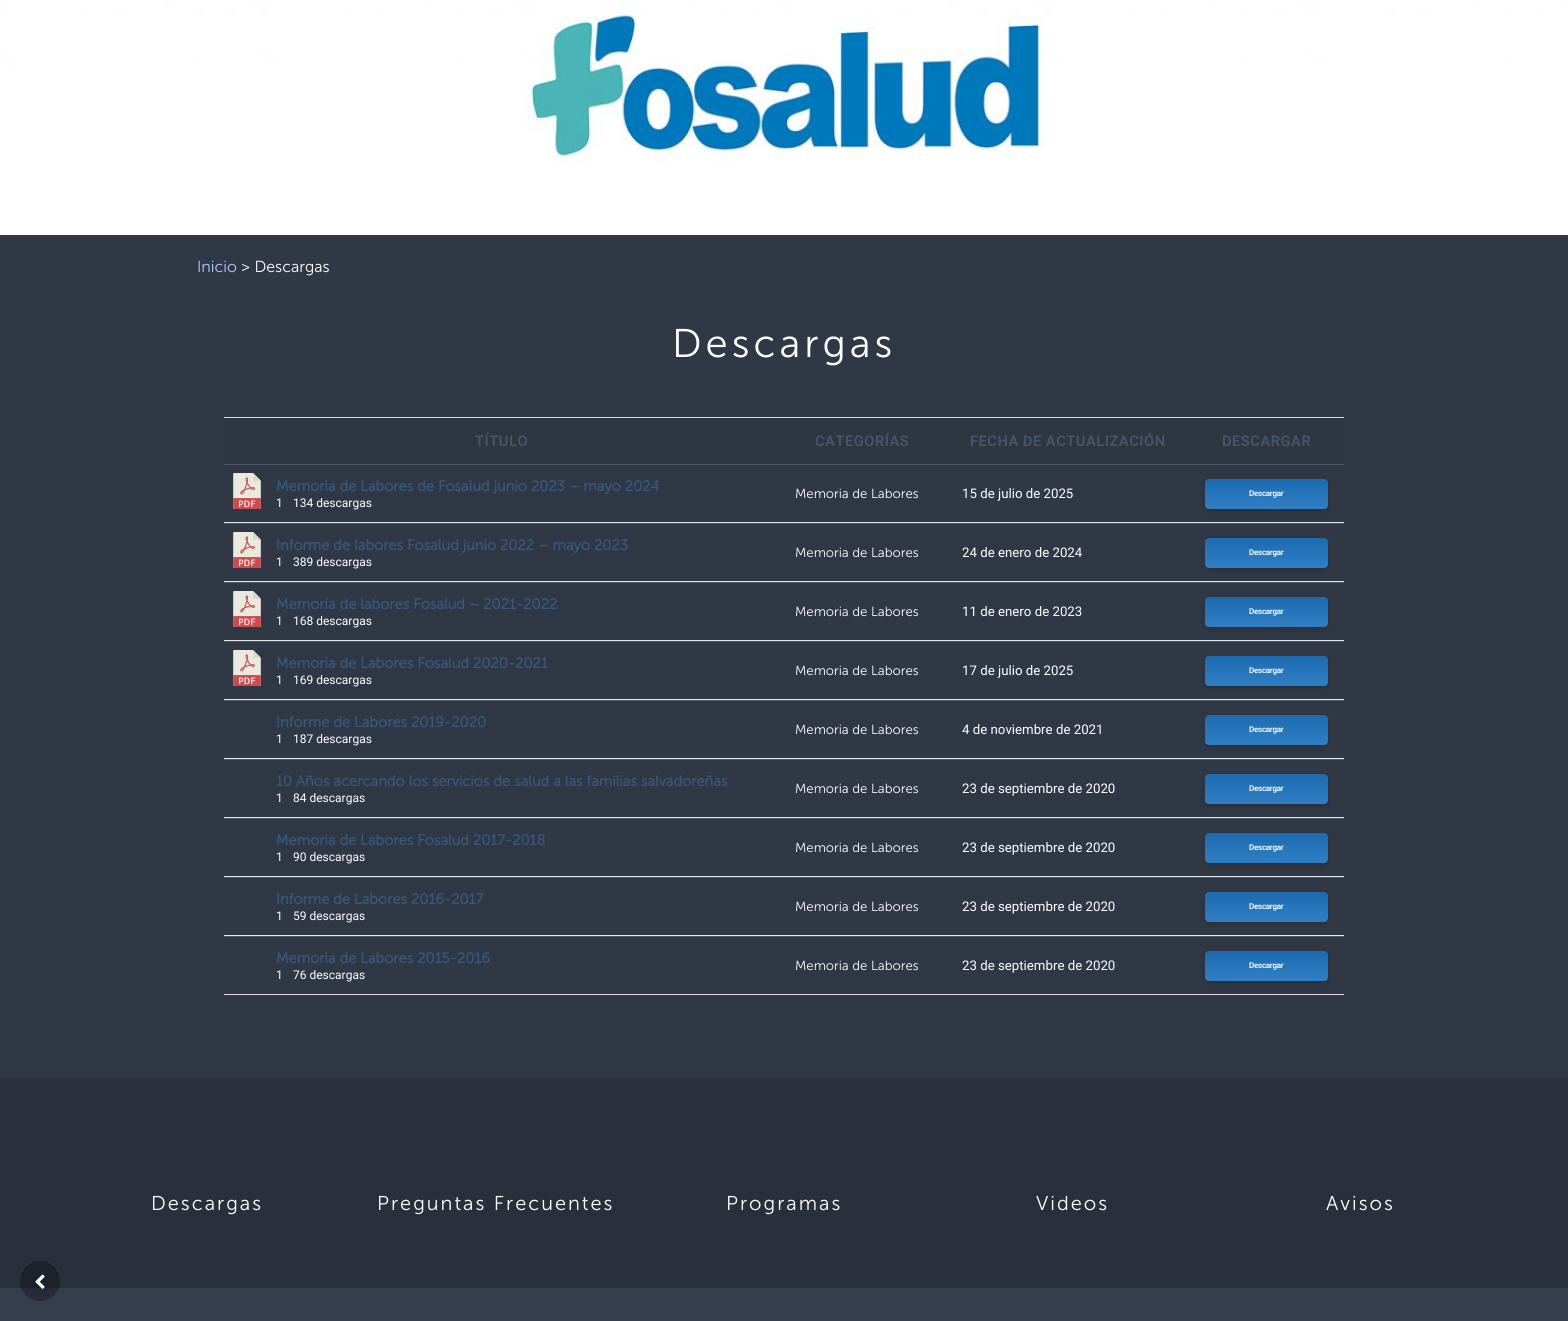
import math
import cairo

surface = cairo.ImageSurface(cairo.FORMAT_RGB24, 1568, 1321)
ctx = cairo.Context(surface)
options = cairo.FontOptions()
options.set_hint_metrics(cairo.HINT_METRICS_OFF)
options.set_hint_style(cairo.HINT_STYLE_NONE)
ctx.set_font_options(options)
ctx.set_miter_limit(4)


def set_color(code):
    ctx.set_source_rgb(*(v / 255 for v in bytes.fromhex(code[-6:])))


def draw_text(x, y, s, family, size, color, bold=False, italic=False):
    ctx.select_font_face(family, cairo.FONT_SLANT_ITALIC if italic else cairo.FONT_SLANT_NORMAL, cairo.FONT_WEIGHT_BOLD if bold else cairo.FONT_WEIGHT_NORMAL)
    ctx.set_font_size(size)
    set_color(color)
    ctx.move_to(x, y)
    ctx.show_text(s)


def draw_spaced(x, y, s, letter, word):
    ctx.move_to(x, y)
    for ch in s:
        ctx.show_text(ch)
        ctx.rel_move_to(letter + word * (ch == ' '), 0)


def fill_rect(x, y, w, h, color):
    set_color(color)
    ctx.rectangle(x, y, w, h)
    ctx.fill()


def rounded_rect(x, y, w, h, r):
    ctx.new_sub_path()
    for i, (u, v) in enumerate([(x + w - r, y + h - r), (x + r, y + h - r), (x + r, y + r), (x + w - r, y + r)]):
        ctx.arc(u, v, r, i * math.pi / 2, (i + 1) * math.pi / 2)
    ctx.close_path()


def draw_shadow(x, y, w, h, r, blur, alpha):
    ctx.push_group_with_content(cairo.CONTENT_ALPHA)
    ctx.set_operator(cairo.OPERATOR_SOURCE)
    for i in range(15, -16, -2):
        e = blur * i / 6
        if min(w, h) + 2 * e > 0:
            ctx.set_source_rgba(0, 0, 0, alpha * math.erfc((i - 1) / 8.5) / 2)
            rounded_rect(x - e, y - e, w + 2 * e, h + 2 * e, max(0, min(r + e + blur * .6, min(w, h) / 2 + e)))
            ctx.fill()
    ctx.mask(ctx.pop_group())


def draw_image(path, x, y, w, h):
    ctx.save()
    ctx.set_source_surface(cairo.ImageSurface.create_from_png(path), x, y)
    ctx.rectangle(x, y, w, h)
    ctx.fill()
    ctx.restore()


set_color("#303845")
ctx.paint()
draw_image("assets/img1.png", 0, 0, 1568, 235)
draw_text(197, 272, "Inicio", "Museo Sans Light", 16, "#b1c9ff")
draw_text(241, 272, "> Descargas", "Museo Sans Light", 16, "#feffff")
ctx.set_font_size(40)
draw_spaced(672, 357, "Descargas", 4, 0)
fill_rect(224, 417, 1120, 1, "#dddddd")
fill_rect(224, 994, 1120, 1, "#dddddd")
fill_rect(224, 418, 1120, 46, "#2e3642")
fill_rect(224, 464, 1120, 1, "#4e5669")
ctx.select_font_face("Roboto SemiBold")
ctx.set_font_size(14.7)
set_color("#475569")
draw_spaced(475, 446, "TÍTULO", 0.5, 0)
draw_spaced(815, 446, "CATEGORÍAS", 0.5, 0)
draw_spaced(970, 446, "FECHA DE ACTUALIZACIÓN", 0.5, 0)
draw_spaced(1222, 446, "DESCARGAR", 0.5, 0)
draw_image("assets/img2.png", 233, 473, 28, 36)
fill_rect(224, 522, 1120, 1, "#e2e8f0")
draw_text(276, 491, "Memoria de Labores de Fosalud junio 2023 – mayo 2024", "Museo Sans", 14.7, "#36597c", bold=True)
draw_text(276, 507, "1", "Roboto", 12, "#feffff")
draw_text(293, 507, "134 descargas", "Roboto", 12, "#feffff")
draw_text(795, 498, "Memoria de Labores", "Museo Sans Light", 13.25, "#feffff")
draw_text(962, 498, "15 de julio de 2025", "Roboto", 13.25, "#feffff")
set_color("#000000")
draw_shadow(1205, 481, 123, 30, 4, 3, 0.15)
set_color("#1e73be")
rounded_rect(1205, 479, 123, 30, 4)
ctx.fill()
gradient = cairo.LinearGradient(1267, 479, 1267, 509)
gradient.add_color_stop_rgba(0, 0, 0, 0, 0.08)
gradient.add_color_stop_rgba(1, 1, 1, 1, 0.08)
ctx.set_source(gradient)
rounded_rect(1205, 479, 123, 30, 4)
ctx.fill()
ctx.select_font_face("Roboto SemiBold")
ctx.set_font_size(8)
set_color("#feffff")
draw_spaced(1249, 496, "Descargar", -0.25, 0)
draw_image("assets/img2.png", 233, 532, 28, 36)
fill_rect(224, 523, 1120, 1, "#4e5669")
fill_rect(224, 581, 1120, 1, "#e2e8f0")
draw_text(276, 550, "Informe de labores Fosalud junio 2022 – mayo 2023", "Museo Sans", 14.7, "#36597c", bold=True)
draw_text(276, 566, "1", "Roboto", 12, "#feffff")
draw_text(293, 566, "389 descargas", "Roboto", 12, "#feffff")
draw_text(795, 557, "Memoria de Labores", "Museo Sans Light", 13.25, "#feffff")
draw_text(962, 557, "24 de enero de 2024", "Roboto", 13.25, "#feffff")
set_color("#000000")
draw_shadow(1205, 540, 123, 30, 4, 3, 0.15)
set_color("#1e73be")
rounded_rect(1205, 538, 123, 30, 4)
ctx.fill()
gradient = cairo.LinearGradient(1267, 538, 1267, 568)
gradient.add_color_stop_rgba(0, 0, 0, 0, 0.08)
gradient.add_color_stop_rgba(1, 1, 1, 1, 0.08)
ctx.set_source(gradient)
rounded_rect(1205, 538, 123, 30, 4)
ctx.fill()
ctx.select_font_face("Roboto SemiBold")
ctx.set_font_size(8)
set_color("#feffff")
draw_spaced(1249, 555, "Descargar", -0.25, 0)
draw_image("assets/img2.png", 233, 591, 28, 36)
fill_rect(224, 582, 1120, 1, "#4e5669")
fill_rect(224, 640, 1120, 1, "#e2e8f0")
draw_text(276, 609, "Memoria de labores Fosalud – 2021-2022", "Museo Sans", 14.7, "#36597c", bold=True)
draw_text(276, 625, "1", "Roboto", 12, "#feffff")
draw_text(293, 625, "168 descargas", "Roboto", 12, "#feffff")
draw_text(795, 616, "Memoria de Labores", "Museo Sans Light", 13.25, "#feffff")
draw_text(962, 616, "11 de enero de 2023", "Roboto", 13.25, "#feffff")
set_color("#000000")
draw_shadow(1205, 599, 123, 30, 4, 3, 0.15)
set_color("#1e73be")
rounded_rect(1205, 597, 123, 30, 4)
ctx.fill()
gradient = cairo.LinearGradient(1267, 597, 1267, 627)
gradient.add_color_stop_rgba(0, 0, 0, 0, 0.08)
gradient.add_color_stop_rgba(1, 1, 1, 1, 0.08)
ctx.set_source(gradient)
rounded_rect(1205, 597, 123, 30, 4)
ctx.fill()
ctx.select_font_face("Roboto SemiBold")
ctx.set_font_size(8)
set_color("#feffff")
draw_spaced(1249, 614, "Descargar", -0.25, 0)
draw_image("assets/img2.png", 233, 650, 28, 36)
fill_rect(224, 641, 1120, 1, "#4e5669")
fill_rect(224, 699, 1120, 1, "#e2e8f0")
draw_text(276, 668, "Memoria de Labores Fosalud 2020-2021", "Museo Sans", 14.7, "#36597c", bold=True)
draw_text(276, 684, "1", "Roboto", 12, "#feffff")
draw_text(293, 684, "169 descargas", "Roboto", 12, "#feffff")
draw_text(795, 675, "Memoria de Labores", "Museo Sans Light", 13.25, "#feffff")
draw_text(962, 675, "17 de julio de 2025", "Roboto", 13.25, "#feffff")
set_color("#000000")
draw_shadow(1205, 658, 123, 30, 4, 3, 0.15)
set_color("#1e73be")
rounded_rect(1205, 656, 123, 30, 4)
ctx.fill()
gradient = cairo.LinearGradient(1267, 656, 1267, 686)
gradient.add_color_stop_rgba(0, 0, 0, 0, 0.08)
gradient.add_color_stop_rgba(1, 1, 1, 1, 0.08)
ctx.set_source(gradient)
rounded_rect(1205, 656, 123, 30, 4)
ctx.fill()
ctx.select_font_face("Roboto SemiBold")
ctx.set_font_size(8)
set_color("#feffff")
draw_spaced(1249, 673, "Descargar", -0.25, 0)
fill_rect(224, 700, 1120, 1, "#4e5669")
fill_rect(224, 758, 1120, 1, "#e2e8f0")
draw_text(276, 727, "Informe de Labores 2019-2020", "Museo Sans", 14.7, "#36597c", bold=True)
draw_text(276, 743, "1", "Roboto", 12, "#feffff")
draw_text(293, 743, "187 descargas", "Roboto", 12, "#feffff")
draw_text(795, 734, "Memoria de Labores", "Museo Sans Light", 13.25, "#feffff")
draw_text(962, 734, "4 de noviembre de 2021", "Roboto", 13.25, "#feffff")
set_color("#000000")
draw_shadow(1205, 717, 123, 30, 4, 3, 0.15)
set_color("#1e73be")
rounded_rect(1205, 715, 123, 30, 4)
ctx.fill()
gradient = cairo.LinearGradient(1267, 715, 1267, 745)
gradient.add_color_stop_rgba(0, 0, 0, 0, 0.08)
gradient.add_color_stop_rgba(1, 1, 1, 1, 0.08)
ctx.set_source(gradient)
rounded_rect(1205, 715, 123, 30, 4)
ctx.fill()
ctx.select_font_face("Roboto SemiBold")
ctx.set_font_size(8)
set_color("#feffff")
draw_spaced(1249, 732, "Descargar", -0.25, 0)
fill_rect(224, 759, 1120, 1, "#4e5669")
fill_rect(224, 817, 1120, 1, "#e2e8f0")
draw_text(276, 786, "10 Años acercando los servicios de salud a las familias salvadoreñas", "Museo Sans", 14.7, "#36597c", bold=True)
draw_text(276, 802, "1", "Roboto", 12, "#feffff")
draw_text(293, 802, "84 descargas", "Roboto", 12, "#feffff")
draw_text(795, 793, "Memoria de Labores", "Museo Sans Light", 13.25, "#feffff")
draw_text(962, 793, "23 de septiembre de 2020", "Roboto", 13.25, "#feffff")
set_color("#000000")
draw_shadow(1205, 776, 123, 30, 4, 3, 0.15)
set_color("#1e73be")
rounded_rect(1205, 774, 123, 30, 4)
ctx.fill()
gradient = cairo.LinearGradient(1267, 774, 1267, 804)
gradient.add_color_stop_rgba(0, 0, 0, 0, 0.08)
gradient.add_color_stop_rgba(1, 1, 1, 1, 0.08)
ctx.set_source(gradient)
rounded_rect(1205, 774, 123, 30, 4)
ctx.fill()
ctx.select_font_face("Roboto SemiBold")
ctx.set_font_size(8)
set_color("#feffff")
draw_spaced(1249, 791, "Descargar", -0.25, 0)
fill_rect(224, 818, 1120, 1, "#4e5669")
fill_rect(224, 876, 1120, 1, "#e2e8f0")
draw_text(276, 845, "Memoria de Labores Fosalud 2017-2018", "Museo Sans", 14.7, "#36597c", bold=True)
draw_text(276, 861, "1", "Roboto", 12, "#feffff")
draw_text(293, 861, "90 descargas", "Roboto", 12, "#feffff")
draw_text(795, 852, "Memoria de Labores", "Museo Sans Light", 13.25, "#feffff")
draw_text(962, 852, "23 de septiembre de 2020", "Roboto", 13.25, "#feffff")
set_color("#000000")
draw_shadow(1205, 835, 123, 30, 4, 3, 0.15)
set_color("#1e73be")
rounded_rect(1205, 833, 123, 30, 4)
ctx.fill()
gradient = cairo.LinearGradient(1267, 833, 1267, 863)
gradient.add_color_stop_rgba(0, 0, 0, 0, 0.08)
gradient.add_color_stop_rgba(1, 1, 1, 1, 0.08)
ctx.set_source(gradient)
rounded_rect(1205, 833, 123, 30, 4)
ctx.fill()
ctx.select_font_face("Roboto SemiBold")
ctx.set_font_size(8)
set_color("#feffff")
draw_spaced(1249, 850, "Descargar", -0.25, 0)
fill_rect(224, 877, 1120, 1, "#4e5669")
fill_rect(224, 935, 1120, 1, "#e2e8f0")
draw_text(276, 904, "Informe de Labores 2016-2017", "Museo Sans", 14.7, "#36597c", bold=True)
draw_text(276, 920, "1", "Roboto", 12, "#feffff")
draw_text(293, 920, "59 descargas", "Roboto", 12, "#feffff")
draw_text(795, 911, "Memoria de Labores", "Museo Sans Light", 13.25, "#feffff")
draw_text(962, 911, "23 de septiembre de 2020", "Roboto", 13.25, "#feffff")
set_color("#000000")
draw_shadow(1205, 894, 123, 30, 4, 3, 0.15)
set_color("#1e73be")
rounded_rect(1205, 892, 123, 30, 4)
ctx.fill()
gradient = cairo.LinearGradient(1267, 892, 1267, 922)
gradient.add_color_stop_rgba(0, 0, 0, 0, 0.08)
gradient.add_color_stop_rgba(1, 1, 1, 1, 0.08)
ctx.set_source(gradient)
rounded_rect(1205, 892, 123, 30, 4)
ctx.fill()
ctx.select_font_face("Roboto SemiBold")
ctx.set_font_size(8)
set_color("#feffff")
draw_spaced(1249, 909, "Descargar", -0.25, 0)
fill_rect(224, 936, 1120, 1, "#4e5669")
draw_text(276, 963, "Memoria de Labores 2015-2016", "Museo Sans", 14.7, "#36597c", bold=True)
draw_text(276, 979, "1", "Roboto", 12, "#feffff")
draw_text(293, 979, "76 descargas", "Roboto", 12, "#feffff")
draw_text(795, 970, "Memoria de Labores", "Museo Sans Light", 13.25, "#feffff")
draw_text(962, 970, "23 de septiembre de 2020", "Roboto", 13.25, "#feffff")
set_color("#000000")
draw_shadow(1205, 953, 123, 30, 4, 3, 0.15)
set_color("#1e73be")
rounded_rect(1205, 951, 123, 30, 4)
ctx.fill()
gradient = cairo.LinearGradient(1267, 951, 1267, 981)
gradient.add_color_stop_rgba(0, 0, 0, 0, 0.08)
gradient.add_color_stop_rgba(1, 1, 1, 1, 0.08)
ctx.set_source(gradient)
rounded_rect(1205, 951, 123, 30, 4)
ctx.fill()
ctx.select_font_face("Roboto SemiBold")
ctx.set_font_size(8)
set_color("#feffff")
draw_spaced(1249, 968, "Descargar", -0.25, 0)
fill_rect(0, 1078, 1568, 210, "#29303c")
ctx.select_font_face("Museo Sans Light")
ctx.set_font_size(20)
set_color("#feffff")
draw_spaced(151, 1210, "Descargas", 2, 0)
draw_spaced(377, 1210, "Preguntas Frecuentes", 2, 0)
draw_spaced(726, 1210, "Programas", 2, 0)
draw_spaced(1036, 1210, "Videos", 2, 0)
draw_spaced(1326, 1210, "Avisos", 2, 0)
fill_rect(0, 1288, 1568, 33, "#363d4d")
ctx.set_source_rgba(0, 0, 0, 0.3)
ctx.new_path()
ctx.arc(40, 1281, 20, 0, 2 * math.pi)
ctx.fill()
draw_image("assets/img3.png", 35, 1274, 10, 15)
surface.write_to_png("output.png")
